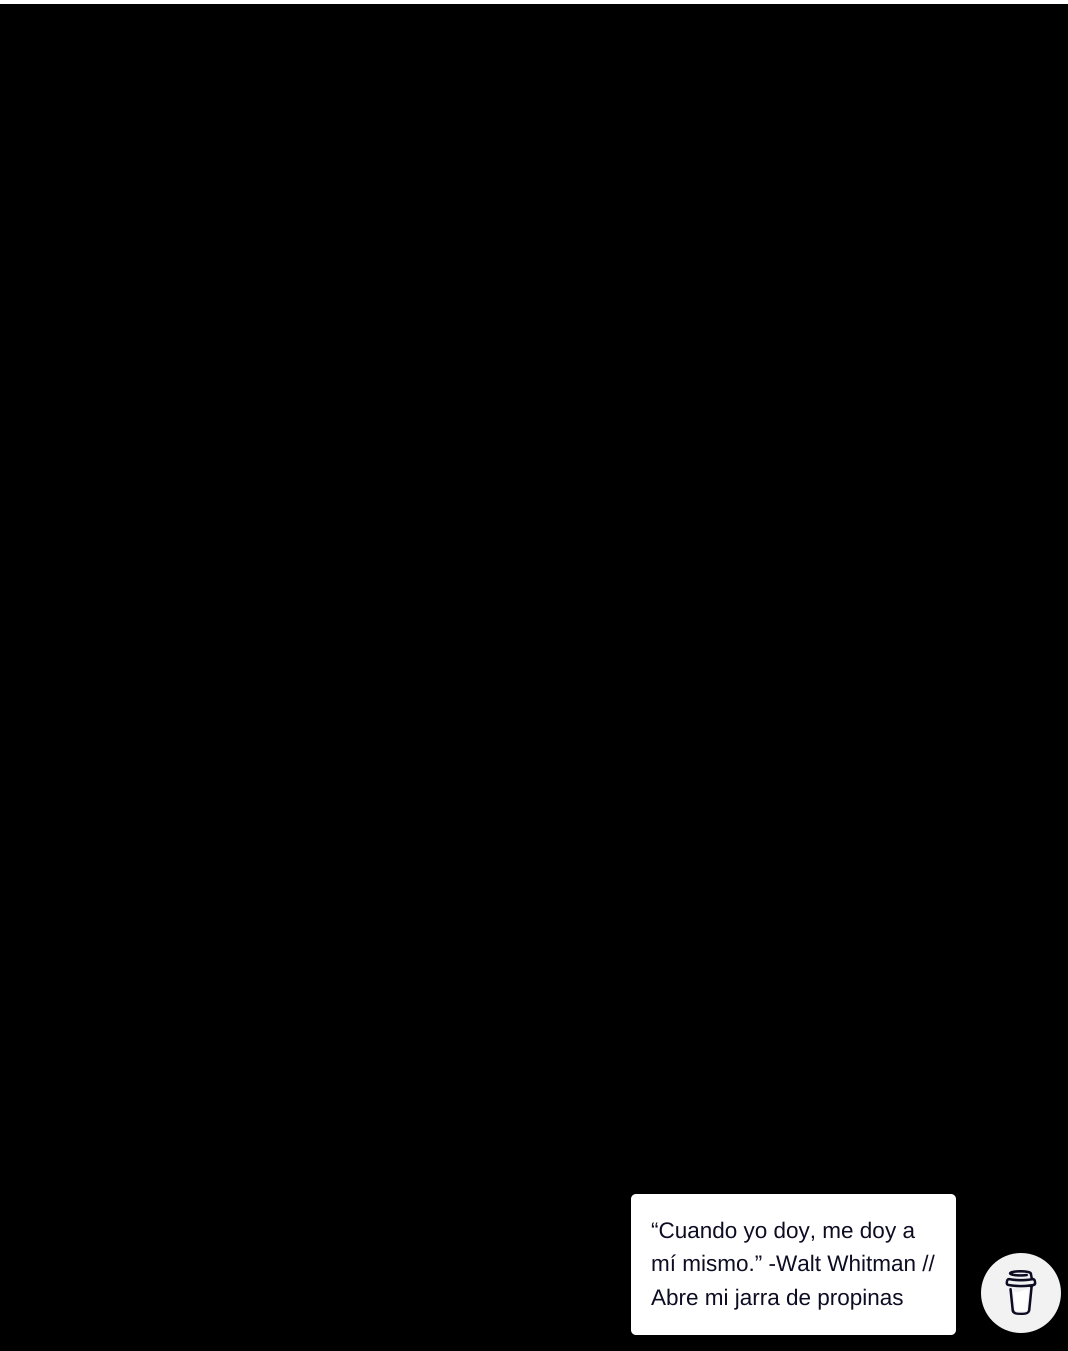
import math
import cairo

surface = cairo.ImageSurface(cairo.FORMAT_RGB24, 1068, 1351)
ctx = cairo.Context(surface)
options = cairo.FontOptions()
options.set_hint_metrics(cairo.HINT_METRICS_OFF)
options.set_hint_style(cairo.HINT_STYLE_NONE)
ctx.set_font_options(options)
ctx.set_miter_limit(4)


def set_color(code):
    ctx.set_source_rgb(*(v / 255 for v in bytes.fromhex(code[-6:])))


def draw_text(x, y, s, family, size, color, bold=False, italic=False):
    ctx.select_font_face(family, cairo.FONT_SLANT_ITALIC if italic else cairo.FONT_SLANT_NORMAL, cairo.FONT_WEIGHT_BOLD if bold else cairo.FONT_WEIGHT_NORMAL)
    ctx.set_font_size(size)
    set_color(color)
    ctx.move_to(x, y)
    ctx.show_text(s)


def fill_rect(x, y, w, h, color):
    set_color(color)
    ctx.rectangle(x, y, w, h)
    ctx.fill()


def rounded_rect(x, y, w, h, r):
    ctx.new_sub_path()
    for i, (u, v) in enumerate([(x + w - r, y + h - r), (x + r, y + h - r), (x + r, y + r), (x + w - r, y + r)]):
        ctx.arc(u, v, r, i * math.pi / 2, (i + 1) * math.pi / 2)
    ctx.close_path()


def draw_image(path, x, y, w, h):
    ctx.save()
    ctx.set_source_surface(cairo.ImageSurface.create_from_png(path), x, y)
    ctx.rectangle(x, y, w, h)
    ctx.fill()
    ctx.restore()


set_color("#000000")
ctx.paint()
fill_rect(0, 0, 1068, 4, "#ffffff")
rounded_rect(631, 1194, 325, 141, 5)
ctx.fill()
draw_text(651, 1238, "“Cuando yo doy, me doy a", "Liberation Sans", 22.5, "#0d0c22")
draw_text(651, 1271, "mí mismo.” -Walt Whitman //", "Liberation Sans", 22.5, "#0d0c22")
draw_text(651, 1305, "Abre mi jarra de propinas", "Liberation Sans", 22.5, "#0d0c22")
set_color("#f2f2f2")
ctx.new_path()
ctx.arc(1021, 1293, 40, 0, 2 * math.pi)
ctx.fill()
draw_image("assets/img1.png", 1005, 1270, 32, 45)
surface.write_to_png("output.png")
